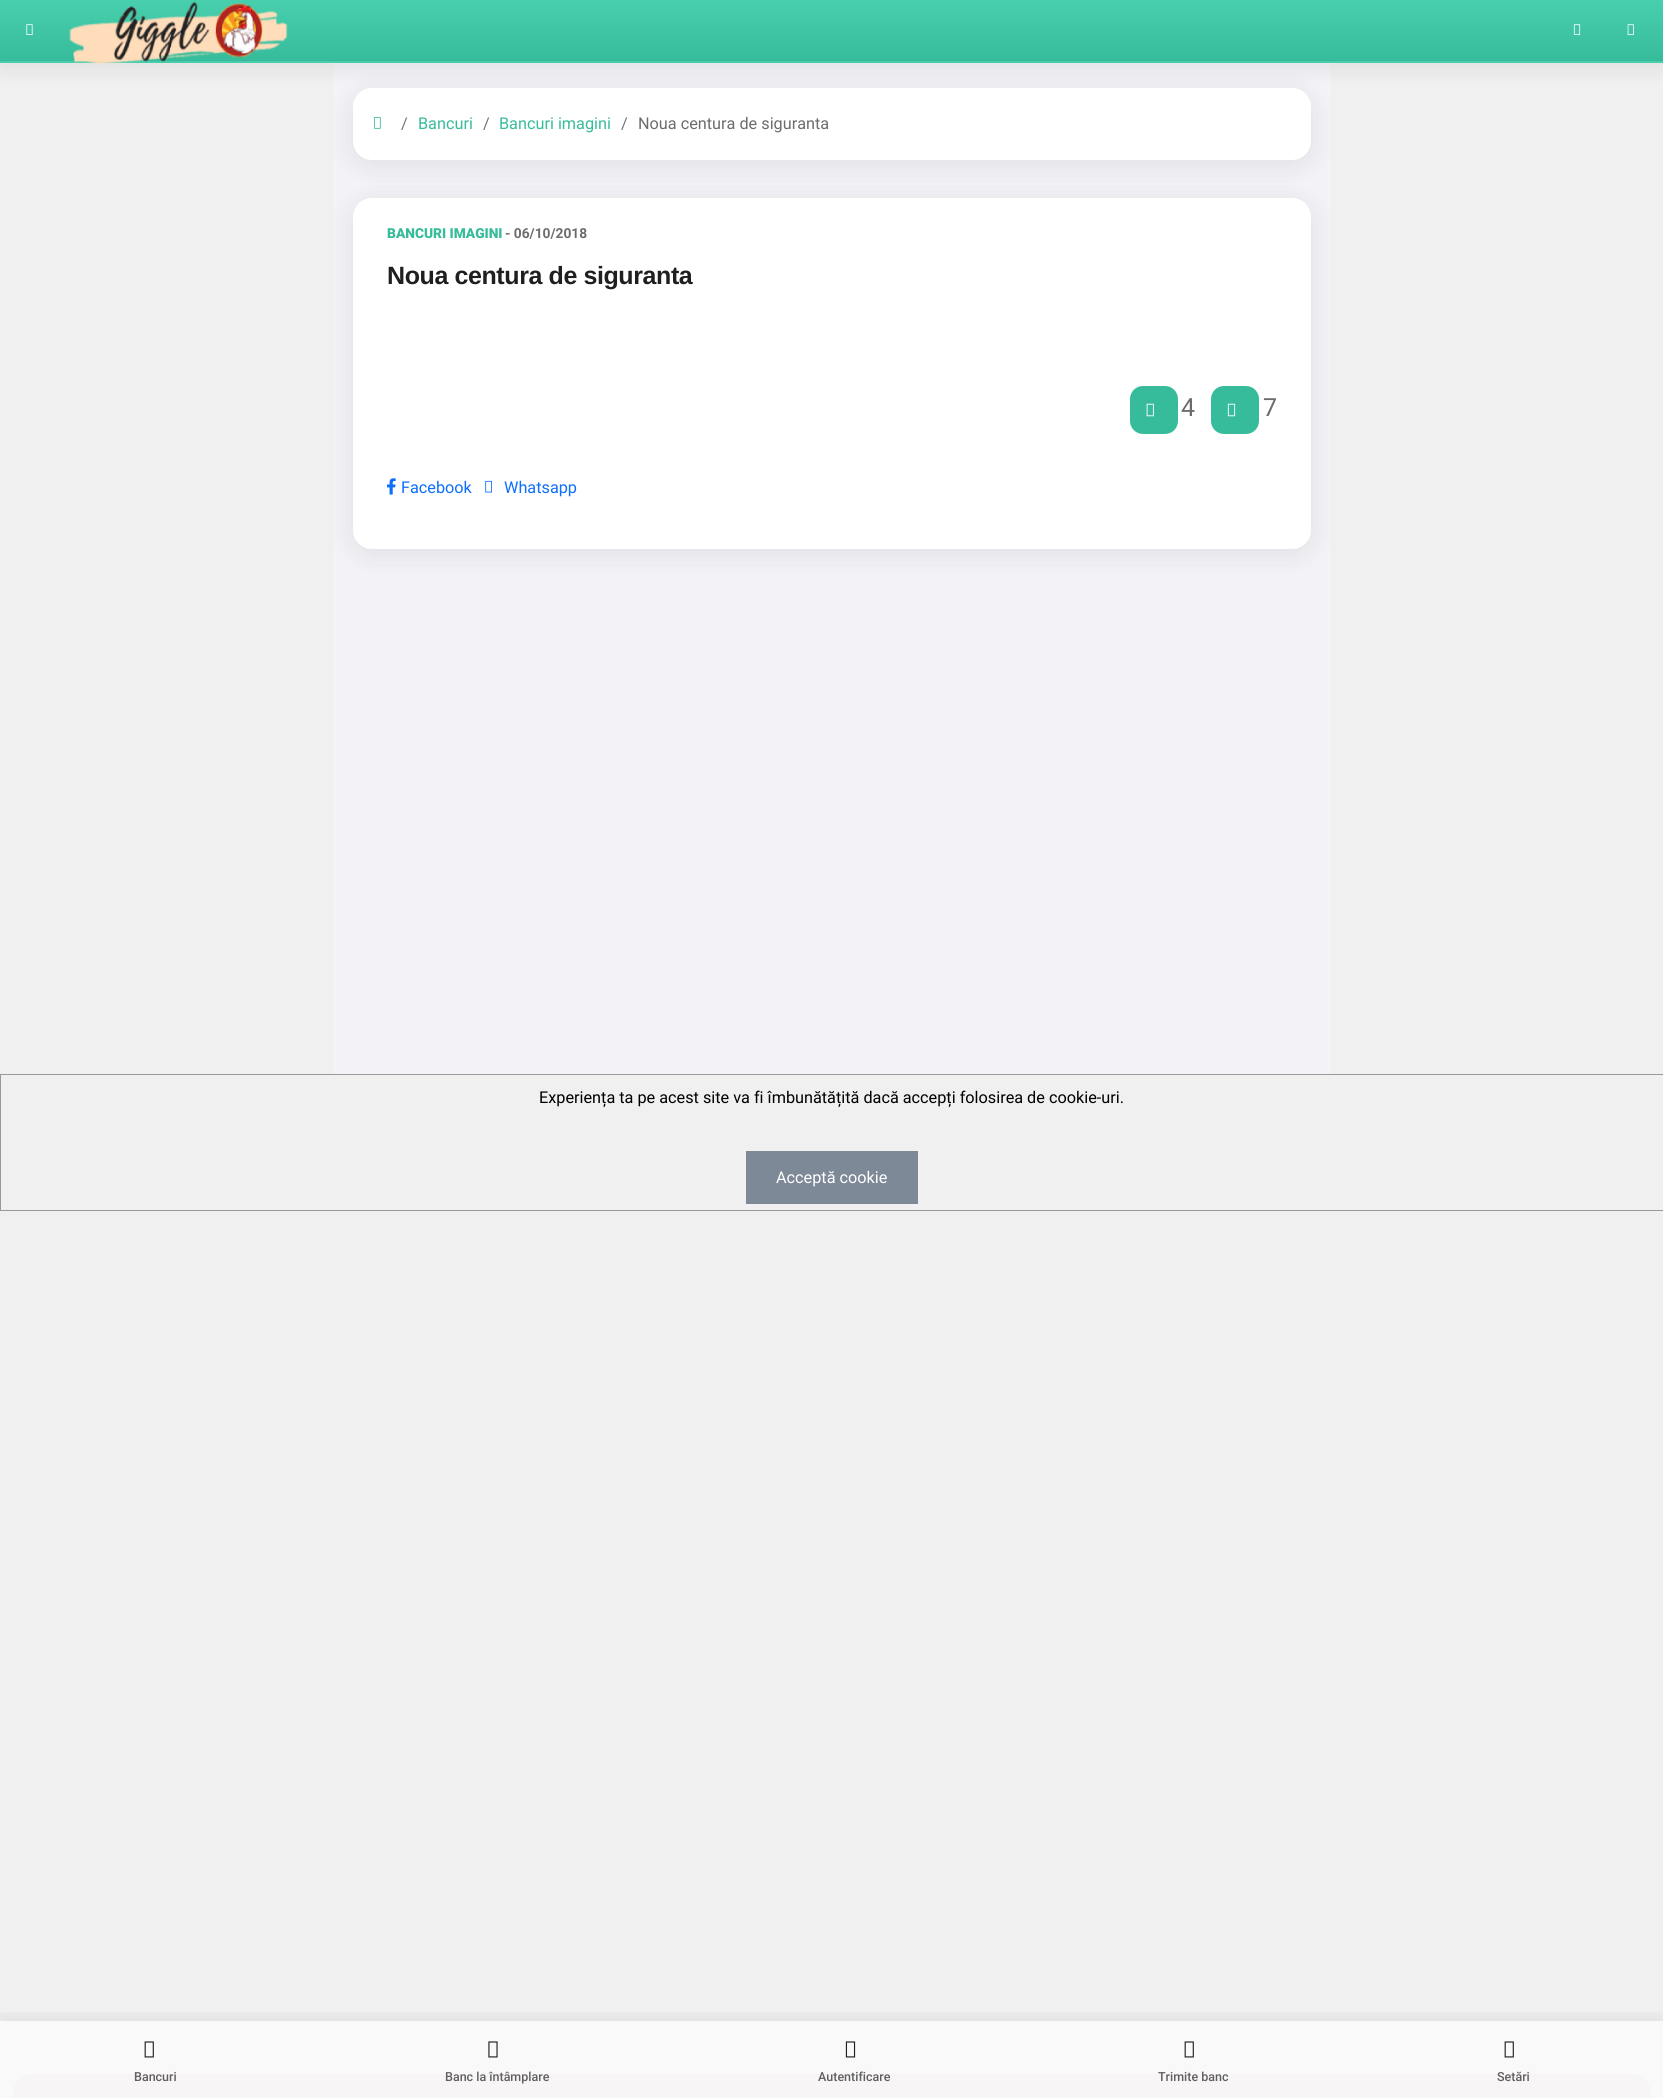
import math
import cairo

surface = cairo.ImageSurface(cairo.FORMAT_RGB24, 1663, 2098)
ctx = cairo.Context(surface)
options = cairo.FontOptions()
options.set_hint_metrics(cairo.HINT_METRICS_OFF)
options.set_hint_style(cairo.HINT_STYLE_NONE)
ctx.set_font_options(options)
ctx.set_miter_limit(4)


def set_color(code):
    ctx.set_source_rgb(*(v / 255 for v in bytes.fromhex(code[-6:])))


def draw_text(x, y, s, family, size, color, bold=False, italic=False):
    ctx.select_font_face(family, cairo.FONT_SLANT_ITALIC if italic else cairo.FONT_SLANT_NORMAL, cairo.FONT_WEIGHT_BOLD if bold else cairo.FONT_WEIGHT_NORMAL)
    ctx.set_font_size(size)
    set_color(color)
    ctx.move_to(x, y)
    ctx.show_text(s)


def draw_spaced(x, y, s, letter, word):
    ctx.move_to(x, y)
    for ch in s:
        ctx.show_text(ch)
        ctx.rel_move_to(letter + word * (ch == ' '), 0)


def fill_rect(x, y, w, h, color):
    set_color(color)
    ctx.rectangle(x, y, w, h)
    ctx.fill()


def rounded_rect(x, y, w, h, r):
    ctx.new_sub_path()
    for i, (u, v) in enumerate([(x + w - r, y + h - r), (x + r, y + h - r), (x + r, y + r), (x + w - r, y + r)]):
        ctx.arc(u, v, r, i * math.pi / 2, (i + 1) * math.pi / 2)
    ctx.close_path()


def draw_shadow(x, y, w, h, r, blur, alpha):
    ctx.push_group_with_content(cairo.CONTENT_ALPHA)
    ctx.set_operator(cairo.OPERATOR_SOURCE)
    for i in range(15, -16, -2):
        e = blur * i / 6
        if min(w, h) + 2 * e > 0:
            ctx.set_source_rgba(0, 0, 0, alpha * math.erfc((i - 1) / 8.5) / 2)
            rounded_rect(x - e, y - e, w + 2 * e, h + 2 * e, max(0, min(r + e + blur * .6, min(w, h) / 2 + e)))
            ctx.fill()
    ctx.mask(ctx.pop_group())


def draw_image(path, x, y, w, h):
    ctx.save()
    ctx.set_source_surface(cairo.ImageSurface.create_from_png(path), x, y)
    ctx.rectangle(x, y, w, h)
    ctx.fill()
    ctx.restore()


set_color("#f0f0f0")
ctx.paint()
fill_rect(333, 63, 998, 1011, "#f2f2f7")
set_color("#000000")
draw_shadow(353, 93, 958, 72, 19, 15, 0.08)
set_color("#ffffff")
rounded_rect(353, 88, 958, 72, 19)
ctx.fill()
set_color("#000000")
draw_shadow(0, 5, 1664, 63, 0, 11, 0.08)
gradient = cairo.LinearGradient(832, 0, 832, 61)
gradient.add_color_stop_rgba(0, 0.282, 0.812, 0.678, 1)
gradient.add_color_stop_rgba(1, 0.216, 0.737, 0.608, 1)
ctx.set_source(gradient)
ctx.rectangle(0, 0, 1663, 61)
ctx.fill()
gradient = cairo.LinearGradient(832, 61, 832, 123)
gradient.add_color_stop_rgba(0, 0.282, 0.812, 0.678, 1)
gradient.add_color_stop_rgba(1, 0.216, 0.737, 0.608, 1)
ctx.set_source(gradient)
ctx.rectangle(0, 62, 1663, 1)
ctx.fill()
fill_rect(0, 61, 1663, 1, "#46c9a8")
draw_image("assets/img1.png", 26, 24, 7, 11)
draw_image("assets/img2.png", 69, 1, 219, 63)
draw_image("assets/img3.png", 1573, 24, 8, 11)
draw_image("assets/img4.png", 1627, 24, 7, 11)
draw_image("assets/img5.png", 374, 117, 7, 12)
draw_text(401, 129, "/", "Roboto", 16.25, "#6c757d")
draw_text(418, 129, "Bancuri", "Roboto", 16.25, "#37bc9b")
draw_text(483, 129, "/", "Roboto", 16.25, "#6c757d")
draw_text(499, 129, "Bancuri imagini", "Roboto", 16.25, "#37bc9b")
draw_text(621, 129, "/", "Roboto", 16.25, "#6c757d")
draw_text(638, 129, "Noua centura de siguranta", "Roboto", 16.25, "#6c6c6c")
set_color("#000000")
draw_shadow(353, 203, 958, 351, 19, 15, 0.08)
set_color("#ffffff")
rounded_rect(353, 198, 958, 351, 19)
ctx.fill()
draw_text(387, 238, "BANCURI IMAGINI", "Roboto Black", 13.75, "#37bc9b")
draw_text(505, 238, "- 06/10/2018", "Roboto", 13.75, "#6c6c6c", bold=True)
ctx.select_font_face("Liberation Sans", cairo.FONT_SLANT_NORMAL, cairo.FONT_WEIGHT_BOLD)
ctx.set_font_size(25)
set_color("#1f1f1f")
draw_spaced(387, 284, "Noua centura de siguranta", -0.4, 0)
set_color("#37bc9b")
rounded_rect(1130, 386, 48, 48, 13)
ctx.fill()
draw_image("assets/img6.png", 1146, 403, 8, 14)
draw_text(1181, 416, "4", "Roboto", 25, "#6c6c6c")
set_color("#37bc9b")
rounded_rect(1211, 386, 48, 48, 13)
ctx.fill()
draw_image("assets/img7.png", 1227, 403, 9, 14)
draw_text(1263, 416, "7", "Roboto", 25, "#6c6c6c")
draw_image("assets/img8.png", 387, 478, 9, 17)
draw_text(401, 493, "Facebook", "Roboto", 16.25, "#0d6efd")
draw_image("assets/img9.png", 485, 480, 7, 13)
draw_text(504, 493, "Whatsapp", "Roboto", 16.25, "#0d6efd")
set_color("#da4453")
rounded_rect(13, 2074, 1638, 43, 19)
ctx.fill()
ctx.save()
ctx.rectangle(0, 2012, 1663, 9)
ctx.clip()
set_color("#000000")
draw_shadow(0, 2015, 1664, 78, 0, 6, 0.06)
ctx.restore()
ctx.set_source_rgba(0.976, 0.976, 0.976, 0.98)
ctx.rectangle(0, 2021, 1663, 77)
ctx.fill()
draw_image("assets/img10.png", 144, 2041, 10, 17)
draw_text(134, 2081, "Bancuri", "Roboto Medium", 12.5, "#605f5f")
draw_image("assets/img11.png", 488, 2041, 10, 17)
draw_text(445, 2081, "Banc la întâmplare", "Roboto Medium", 12.5, "#605f5f")
draw_image("assets/img12.png", 845, 2041, 11, 17)
draw_text(818, 2081, "Autentificare", "Roboto Medium", 12.5, "#605f5f")
draw_image("assets/img10.png", 1184, 2041, 10, 17)
draw_text(1158, 2081, "Trimite banc", "Roboto Medium", 12.5, "#605f5f")
draw_image("assets/img10.png", 1504, 2041, 10, 17)
draw_text(1497, 2081, "Setări", "Roboto Medium", 12.5, "#605f5f")
ctx.rectangle(0.5, 1074.5, 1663, 136)
set_color("#999999")
ctx.set_line_width(1)
ctx.stroke()
draw_text(539, 1103, "Experiența ta pe acest site va fi îmbunătățită dacă accepți folosirea de cookie-uri.", "Roboto", 16.25, "#000000")
fill_rect(746, 1151, 172, 53, "#7e8998")
draw_text(776, 1183, "Acceptă cookie", "Roboto", 16.25, "#ffffff")
surface.write_to_png("output.png")
